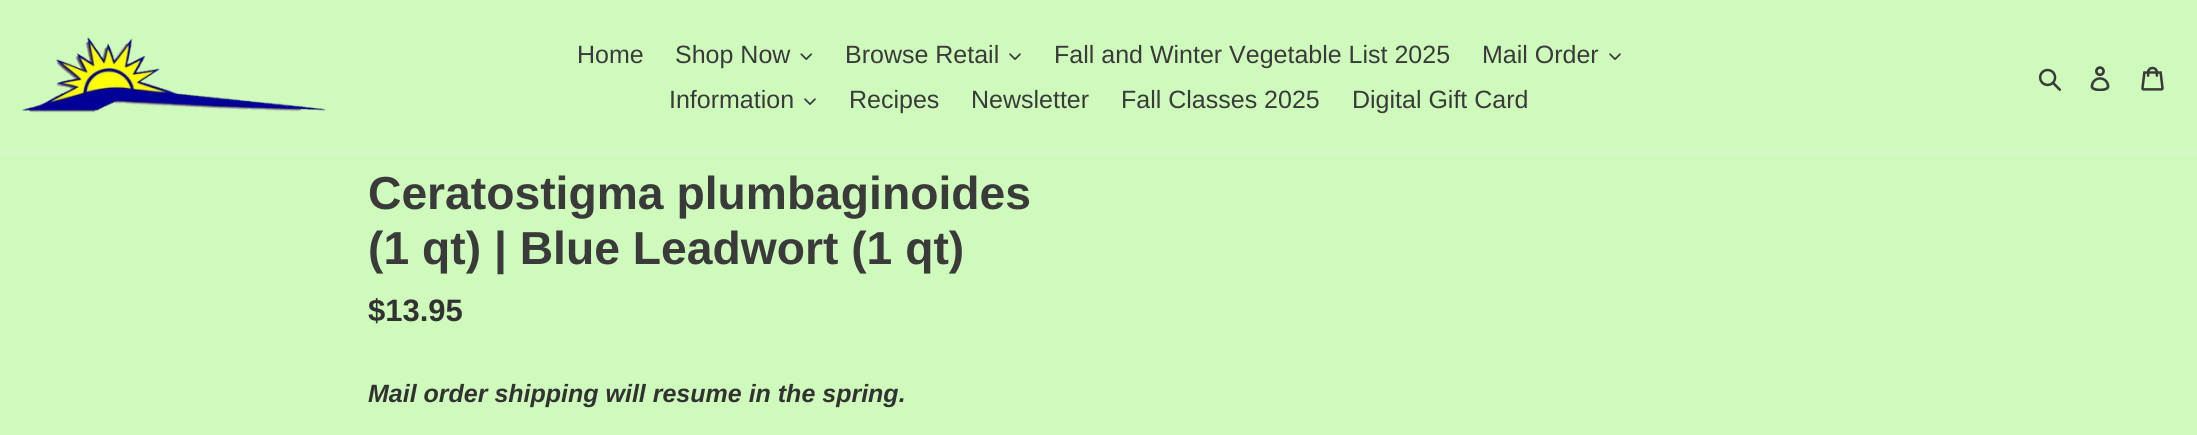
import math
import cairo

surface = cairo.ImageSurface(cairo.FORMAT_RGB24, 2197, 435)
ctx = cairo.Context(surface)
options = cairo.FontOptions()
options.set_hint_metrics(cairo.HINT_METRICS_OFF)
options.set_hint_style(cairo.HINT_STYLE_NONE)
ctx.set_font_options(options)
ctx.set_miter_limit(4)


def set_color(code):
    ctx.set_source_rgb(*(v / 255 for v in bytes.fromhex(code[-6:])))


def draw_text(x, y, s, family, size, color, bold=False, italic=False):
    ctx.select_font_face(family, cairo.FONT_SLANT_ITALIC if italic else cairo.FONT_SLANT_NORMAL, cairo.FONT_WEIGHT_BOLD if bold else cairo.FONT_WEIGHT_NORMAL)
    ctx.set_font_size(size)
    set_color(color)
    ctx.move_to(x, y)
    ctx.show_text(s)


def fill_rect(x, y, w, h, color):
    set_color(color)
    ctx.rectangle(x, y, w, h)
    ctx.fill()


def draw_image(path, x, y, w, h):
    ctx.save()
    ctx.set_source_surface(cairo.ImageSurface.create_from_png(path), x, y)
    ctx.rectangle(x, y, w, h)
    ctx.fill()
    ctx.restore()


set_color("#cefabc")
ctx.paint()
fill_rect(0, 153, 2197, 1, "#ebebeb")
draw_image("assets/img1.png", 22, 37, 304, 76)
draw_text(577, 63, "Home", "Liberation Sans", 25, "#3a3a3a")
draw_text(675, 63, "Shop Now", "Liberation Sans", 25, "#3a3a3a")
draw_image("assets/img2.png", 800, 53, 13, 7)
draw_text(845, 63, "Browse Retail", "Liberation Sans", 25, "#3a3a3a")
draw_image("assets/img3.png", 1009, 53, 12, 7)
draw_text(1054, 63, "Fall and Winter Vegetable List 2025", "Liberation Sans", 25, "#3a3a3a")
draw_text(1482, 63, "Mail Order", "Liberation Sans", 25, "#3a3a3a")
draw_image("assets/img3.png", 1609, 53, 12, 7)
draw_text(669, 108, "Information", "Liberation Sans", 25, "#3a3a3a")
draw_image("assets/img3.png", 804, 98, 12, 7)
draw_text(849, 108, "Recipes", "Liberation Sans", 25, "#3a3a3a")
draw_text(971, 108, "Newsletter", "Liberation Sans", 25, "#3a3a3a")
draw_text(1121, 108, "Fall Classes 2025", "Liberation Sans", 25, "#3a3a3a")
draw_text(1352, 108, "Digital Gift Card", "Liberation Sans", 25, "#3a3a3a")
draw_image("assets/img4.png", 2038, 68, 23, 23)
draw_image("assets/img5.png", 2090, 66, 20, 25)
draw_image("assets/img6.png", 2141, 66, 23, 25)
draw_text(368, 209, "Ceratostigma plumbaginoides", "Liberation Sans", 46.25, "#3a3a3a", bold=True)
draw_text(368, 264, "(1 qt) | Blue Leadwort (1 qt)", "Liberation Sans", 46.25, "#3a3a3a", bold=True)
draw_text(368, 321, "$13.95", "Liberation Sans", 31, "#333232", bold=True)
draw_text(368, 402, "Mail order shipping will resume in the spring.", "Liberation Sans", 25, "#333232", bold=True, italic=True)
surface.write_to_png("output.png")
